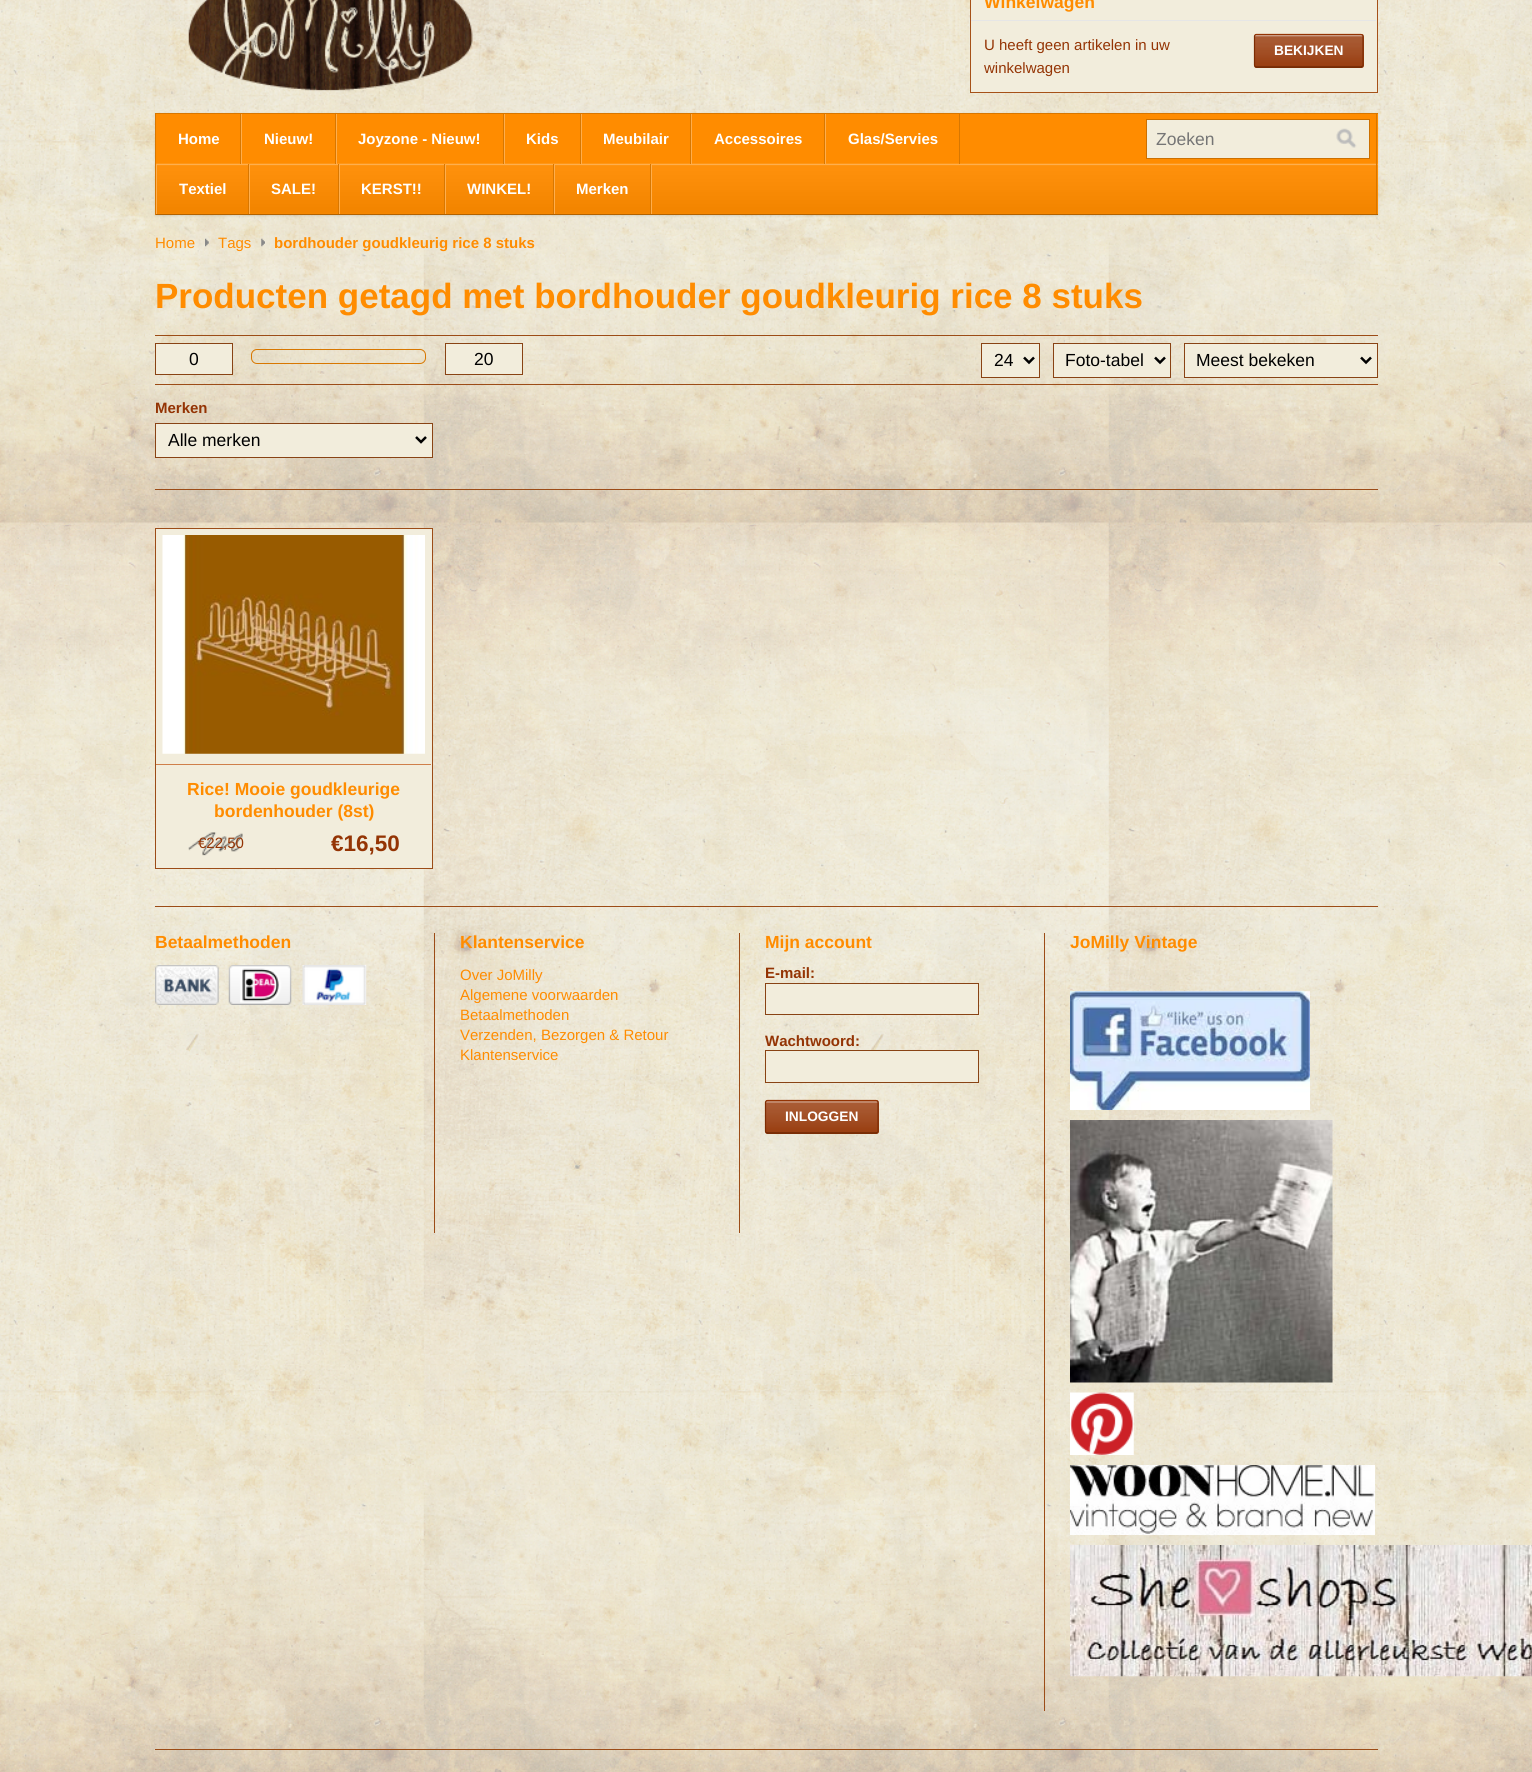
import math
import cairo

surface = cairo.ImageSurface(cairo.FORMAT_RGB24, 1532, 1772)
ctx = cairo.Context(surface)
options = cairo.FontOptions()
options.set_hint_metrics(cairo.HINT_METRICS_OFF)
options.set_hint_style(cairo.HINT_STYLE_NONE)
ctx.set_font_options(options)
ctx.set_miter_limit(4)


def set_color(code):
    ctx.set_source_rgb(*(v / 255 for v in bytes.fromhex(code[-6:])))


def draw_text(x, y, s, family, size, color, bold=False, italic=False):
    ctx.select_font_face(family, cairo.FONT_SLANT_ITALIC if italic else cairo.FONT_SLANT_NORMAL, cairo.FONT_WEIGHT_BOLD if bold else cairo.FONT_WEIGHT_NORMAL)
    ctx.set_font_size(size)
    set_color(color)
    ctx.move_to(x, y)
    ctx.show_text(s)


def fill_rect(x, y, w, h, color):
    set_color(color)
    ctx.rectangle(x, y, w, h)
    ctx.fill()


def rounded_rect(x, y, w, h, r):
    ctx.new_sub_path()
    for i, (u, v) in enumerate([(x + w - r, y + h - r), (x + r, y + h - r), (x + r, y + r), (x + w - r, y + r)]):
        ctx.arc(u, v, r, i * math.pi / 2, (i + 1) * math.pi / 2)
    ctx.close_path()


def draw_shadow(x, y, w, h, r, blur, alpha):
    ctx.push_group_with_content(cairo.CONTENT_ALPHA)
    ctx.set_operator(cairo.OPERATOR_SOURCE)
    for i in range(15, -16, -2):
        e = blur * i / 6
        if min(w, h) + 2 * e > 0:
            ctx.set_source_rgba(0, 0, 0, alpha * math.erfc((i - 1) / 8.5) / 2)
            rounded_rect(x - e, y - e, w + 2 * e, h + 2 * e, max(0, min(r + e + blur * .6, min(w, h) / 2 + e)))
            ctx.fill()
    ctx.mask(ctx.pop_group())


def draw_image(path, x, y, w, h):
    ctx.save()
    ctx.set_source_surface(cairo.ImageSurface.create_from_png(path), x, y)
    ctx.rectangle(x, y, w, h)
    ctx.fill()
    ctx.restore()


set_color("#ffffff")
ctx.paint()
draw_image("assets/img1.png", 0, 0, 1532, 1772)
draw_image("assets/img2.png", 188, 0, 285, 91)
set_color("#f2eddc")
ctx.rectangle(970.5, -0.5, 407, 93)
ctx.fill_preserve()
set_color("#a65118")
ctx.set_line_width(1)
ctx.stroke()
fill_rect(971, 20, 405, 1, "#e6e6e6")
draw_text(984, 8, "Winkelwagen", "Liberation Sans", 17.5, "#ff8c00", bold=True)
draw_text(984, 50, "U heeft geen artikelen in uw", "Liberation Sans", 15, "#943404")
rounded_rect(1254, 34, 110, 34, 2.5)
ctx.fill()
draw_image("assets/img3.png", 1254, 35, 110, 32)
ctx.new_path()
ctx.move_to(1255, 35)
ctx.line_to(1256, 34.5)
ctx.line_to(1361, 34.5)
ctx.line_to(1362.5, 35)
ctx.set_line_width(1.2)
ctx.stroke()
ctx.new_path()
ctx.move_to(1362.5, 35)
ctx.line_to(1363, 36)
ctx.line_to(1363, 65)
ctx.line_to(1362.5, 66.5)
set_color("#7d2c03")
ctx.stroke()
ctx.new_path()
ctx.move_to(1362.5, 66.5)
ctx.line_to(1361, 67)
ctx.line_to(1256, 67)
ctx.line_to(1255, 66.5)
set_color("#672402")
ctx.stroke()
ctx.new_path()
ctx.move_to(1255, 66.5)
ctx.line_to(1254.5, 65)
ctx.line_to(1254.5, 36)
ctx.line_to(1255, 35)
set_color("#7d2c03")
ctx.stroke()
draw_text(1274, 55, "BEKIJKEN", "Liberation Sans", 13.75, "#ffffff", bold=True)
draw_text(984, 73, "winkelwagen", "Liberation Sans", 15, "#943404")
set_color("#000000")
draw_shadow(155, 114, 1223, 102, 0, 1, 0.1)
fill_rect(156, 114, 1222, 100, "#ff8c00")
draw_image("assets/img4.png", 156, 163, 1222, 51)
fill_rect(155, 113, 1223, 1, "#d87700")
fill_rect(1376, 113, 1, 102, "#d87700")
fill_rect(155, 214, 1223, 1, "#b26200")
fill_rect(155, 113, 1, 102, "#d87700")
fill_rect(240, 114, 1, 50, "#d87700")
draw_text(178, 144, "Home", "Liberation Sans", 15, "#ffffff", bold=True)
fill_rect(335, 114, 1, 50, "#d87700")
fill_rect(241, 114, 1, 50, "#ffae4c")
draw_text(264, 144, "Nieuw!", "Liberation Sans", 15, "#ffffff", bold=True)
fill_rect(503, 114, 1, 50, "#d87700")
fill_rect(336, 114, 1, 50, "#ffae4c")
draw_text(358, 144, "Joyzone - Nieuw!", "Liberation Sans", 15, "#ffffff", bold=True)
fill_rect(580, 114, 1, 50, "#d87700")
fill_rect(504, 114, 1, 50, "#ffae4c")
draw_text(526, 144, "Kids", "Liberation Sans", 15, "#ffffff", bold=True)
fill_rect(690, 114, 1, 50, "#d87700")
fill_rect(581, 114, 1, 50, "#ffae4c")
draw_text(603, 144, "Meubilair", "Liberation Sans", 15, "#ffffff", bold=True)
fill_rect(824, 114, 1, 50, "#d87700")
fill_rect(691, 114, 1, 50, "#ffae4c")
draw_text(714, 144, "Accessoires", "Liberation Sans", 15, "#ffffff", bold=True)
fill_rect(959, 114, 1, 50, "#d87700")
fill_rect(825, 114, 1, 50, "#ffae4c")
draw_text(848, 144, "Glas/Servies", "Liberation Sans", 15, "#ffffff", bold=True)
fill_rect(248, 164, 1, 50, "#d87700")
fill_rect(156, 164, 1, 50, "#ffae4c")
draw_text(179, 194, "Textiel", "Liberation Sans", 15, "#ffffff", bold=True)
fill_rect(338, 164, 1, 50, "#d87700")
fill_rect(249, 164, 1, 50, "#ffae4c")
draw_text(271, 194, "SALE!", "Liberation Sans", 15, "#ffffff", bold=True)
fill_rect(444, 164, 1, 50, "#d87700")
fill_rect(339, 164, 1, 50, "#ffae4c")
draw_text(361, 194, "KERST!!", "Liberation Sans", 15, "#ffffff", bold=True)
fill_rect(553, 164, 1, 50, "#d87700")
fill_rect(445, 164, 1, 50, "#ffae4c")
draw_text(467, 194, "WINKEL!", "Liberation Sans", 15, "#ffffff", bold=True)
fill_rect(650, 164, 1, 50, "#d87700")
fill_rect(554, 164, 1, 50, "#ffae4c")
draw_text(576, 194, "Merken", "Liberation Sans", 15, "#ffffff", bold=True)
fill_rect(651, 164, 1, 50, "#ffae4c")
set_color("#f2eddc")
ctx.rectangle(1146.5, 119.5, 223, 39)
ctx.fill_preserve()
set_color("#cc7000")
ctx.set_line_width(1)
ctx.stroke()
draw_text(1156, 145, "Zoeken", "Liberation Sans", 17.5, "#757575")
draw_image("assets/img5.png", 1336, 128, 21, 20)
draw_text(155, 248, "Home", "Liberation Sans", 15, "#ff8c00")
draw_image("assets/img6.png", 205, 238, 4, 9)
draw_text(218, 248, "Tags", "Liberation Sans", 15, "#ff8c00")
draw_image("assets/img7.png", 261, 238, 4, 9)
draw_text(274, 248, "bordhouder goudkleurig rice 8 stuks", "Liberation Sans", 15, "#ff8c00", bold=True)
draw_text(155, 308, "Producten getagd met bordhouder goudkleurig rice 8 stuks", "Liberation Sans", 35, "#ff8c00", bold=True)
fill_rect(155, 335, 1223, 1, "#9c4c17")
set_color("#f2eddc")
ctx.rectangle(155.5, 343.5, 77, 31)
ctx.fill_preserve()
set_color("#894314")
ctx.stroke()
draw_text(189, 365, "0", "Liberation Sans", 17.5, "#000000")
rounded_rect(251.5, 349.5, 174, 14, 5.5)
set_color("#d87700")
ctx.stroke()
set_color("#f2eddc")
ctx.rectangle(445.5, 343.5, 77, 31)
ctx.fill_preserve()
set_color("#894314")
ctx.stroke()
draw_text(474, 365, "20", "Liberation Sans", 17.5, "#000000")
set_color("#f2eddc")
ctx.rectangle(981.5, 343.5, 58, 34)
ctx.fill_preserve()
set_color("#894314")
ctx.stroke()
ctx.new_path()
ctx.move_to(1024, 357.5)
ctx.line_to(1029, 362.5)
ctx.line_to(1034, 357.5)
set_color("#000000")
ctx.set_line_width(2.5)
ctx.stroke()
draw_text(994, 366, "24", "Liberation Sans", 17.5, "#000000")
set_color("#f2eddc")
ctx.rectangle(1053.5, 343.5, 117, 34)
ctx.fill_preserve()
set_color("#894314")
ctx.set_line_width(1)
ctx.stroke()
ctx.new_path()
ctx.move_to(1155, 357.5)
ctx.line_to(1160, 362.5)
ctx.line_to(1165, 357.5)
set_color("#000000")
ctx.set_line_width(2.5)
ctx.stroke()
draw_text(1065, 366, "Foto-tabel", "Liberation Sans", 17.5, "#000000")
set_color("#f2eddc")
ctx.rectangle(1184.5, 343.5, 193, 34)
ctx.fill_preserve()
set_color("#894314")
ctx.set_line_width(1)
ctx.stroke()
ctx.new_path()
ctx.move_to(1361, 357.5)
ctx.line_to(1366, 362.5)
ctx.line_to(1371, 357.5)
set_color("#000000")
ctx.set_line_width(2.5)
ctx.stroke()
draw_text(1196, 366, "Meest bekeken", "Liberation Sans", 17.5, "#000000")
fill_rect(155, 384, 1223, 1, "#9c4c17")
fill_rect(155, 489, 1223, 1, "#9c4c17")
draw_text(155, 413, "Merken", "Liberation Sans", 15, "#943404", bold=True)
set_color("#f2eddc")
ctx.rectangle(155.5, 423.5, 277, 34)
ctx.fill_preserve()
set_color("#894314")
ctx.set_line_width(1)
ctx.stroke()
ctx.new_path()
ctx.move_to(416, 437)
ctx.line_to(421, 442)
ctx.line_to(426, 437)
set_color("#000000")
ctx.set_line_width(2.5)
ctx.stroke()
draw_text(168, 446, "Alle merken", "Liberation Sans", 17.5, "#000000")
set_color("#f2eddc")
ctx.rectangle(155.5, 528.5, 277, 340)
ctx.fill_preserve()
set_color("#9c4c17")
ctx.set_line_width(1)
ctx.stroke()
draw_image("assets/img8.png", 162, 535, 263, 219)
fill_rect(156, 764, 275, 1, "#cf7f4a")
draw_text(187, 795, "Rice! Mooie goudkleurige", "Liberation Sans", 17.5, "#ff8c00", bold=True)
draw_text(214, 817, "bordenhouder (8st)", "Liberation Sans", 17.5, "#ff8c00", bold=True)
draw_image("assets/img9.png", 188, 832, 55, 24)
draw_text(198, 848, "€22,50", "Liberation Sans", 15, "#943404")
draw_text(331, 851, "€16,50", "Liberation Sans", 22.5, "#943404", bold=True)
fill_rect(155, 906, 1223, 1, "#9c4c17")
draw_text(155, 948, "Betaalmethoden", "Liberation Sans", 17.5, "#ff8c00", bold=True)
draw_image("assets/img10.png", 155, 965, 64, 40)
draw_image("assets/img11.png", 228, 965, 64, 40)
draw_image("assets/img12.png", 302, 965, 65, 40)
fill_rect(434, 933, 1, 300, "#9c4c17")
draw_text(460, 948, "Klantenservice", "Liberation Sans", 17.5, "#ff8c00", bold=True)
draw_text(460, 980, "Over JoMilly", "Liberation Sans", 15, "#ff8c00")
draw_text(460, 1000, "Algemene voorwaarden", "Liberation Sans", 15, "#ff8c00")
draw_text(460, 1020, "Betaalmethoden", "Liberation Sans", 15, "#ff8c00")
draw_text(460, 1040, "Verzenden, Bezorgen & Retour", "Liberation Sans", 15, "#ff8c00")
draw_text(460, 1060, "Klantenservice", "Liberation Sans", 15, "#ff8c00")
fill_rect(739, 933, 1, 300, "#9c4c17")
draw_text(765, 948, "Mijn account", "Liberation Sans", 17.5, "#ff8c00", bold=True)
draw_text(765, 978, "E-mail:", "Liberation Sans", 15, "#943404", bold=True)
set_color("#f2eddc")
ctx.rectangle(765.5, 983.5, 213, 31)
ctx.fill_preserve()
set_color("#894314")
ctx.stroke()
draw_text(765, 1046, "Wachtwoord:", "Liberation Sans", 15, "#943404", bold=True)
set_color("#f2eddc")
ctx.rectangle(765.5, 1050.5, 213, 32)
ctx.fill_preserve()
set_color("#894314")
ctx.stroke()
set_color("#943404")
rounded_rect(765, 1100, 114, 34, 2.5)
ctx.fill()
draw_image("assets/img13.png", 765, 1101, 114, 33)
ctx.new_path()
ctx.move_to(766, 1101)
ctx.line_to(767.5, 1100.5)
ctx.line_to(876, 1100.5)
ctx.line_to(877.5, 1101)
ctx.set_line_width(1.2)
ctx.stroke()
ctx.new_path()
ctx.move_to(877.5, 1101)
ctx.line_to(878, 1102.5)
ctx.line_to(878, 1131.5)
ctx.line_to(877.5, 1132.5)
set_color("#7d2c03")
ctx.stroke()
ctx.new_path()
ctx.move_to(877.5, 1132.5)
ctx.line_to(876, 1133)
ctx.line_to(767.5, 1133)
ctx.line_to(766, 1132.5)
set_color("#672402")
ctx.stroke()
ctx.new_path()
ctx.move_to(766, 1132.5)
ctx.line_to(765.5, 1131.5)
ctx.line_to(765.5, 1102.5)
ctx.line_to(766, 1101)
set_color("#7d2c03")
ctx.stroke()
draw_text(785, 1121, "INLOGGEN", "Liberation Sans", 13.75, "#ffffff", bold=True)
fill_rect(1044, 933, 1, 778, "#9c4c17")
draw_text(1070, 948, "JoMilly Vintage", "Liberation Sans", 17.5, "#ff8c00", bold=True)
draw_image("assets/img14.png", 1070, 991, 240, 119)
draw_image("assets/img15.png", 1070, 1120, 263, 263)
draw_image("assets/img16.png", 1070, 1392, 64, 63)
draw_image("assets/img17.png", 1070, 1465, 305, 70)
draw_image("assets/img18.png", 1070, 1545, 462, 132)
fill_rect(155, 1749, 1223, 1, "#9c4c17")
surface.write_to_png("output.png")
